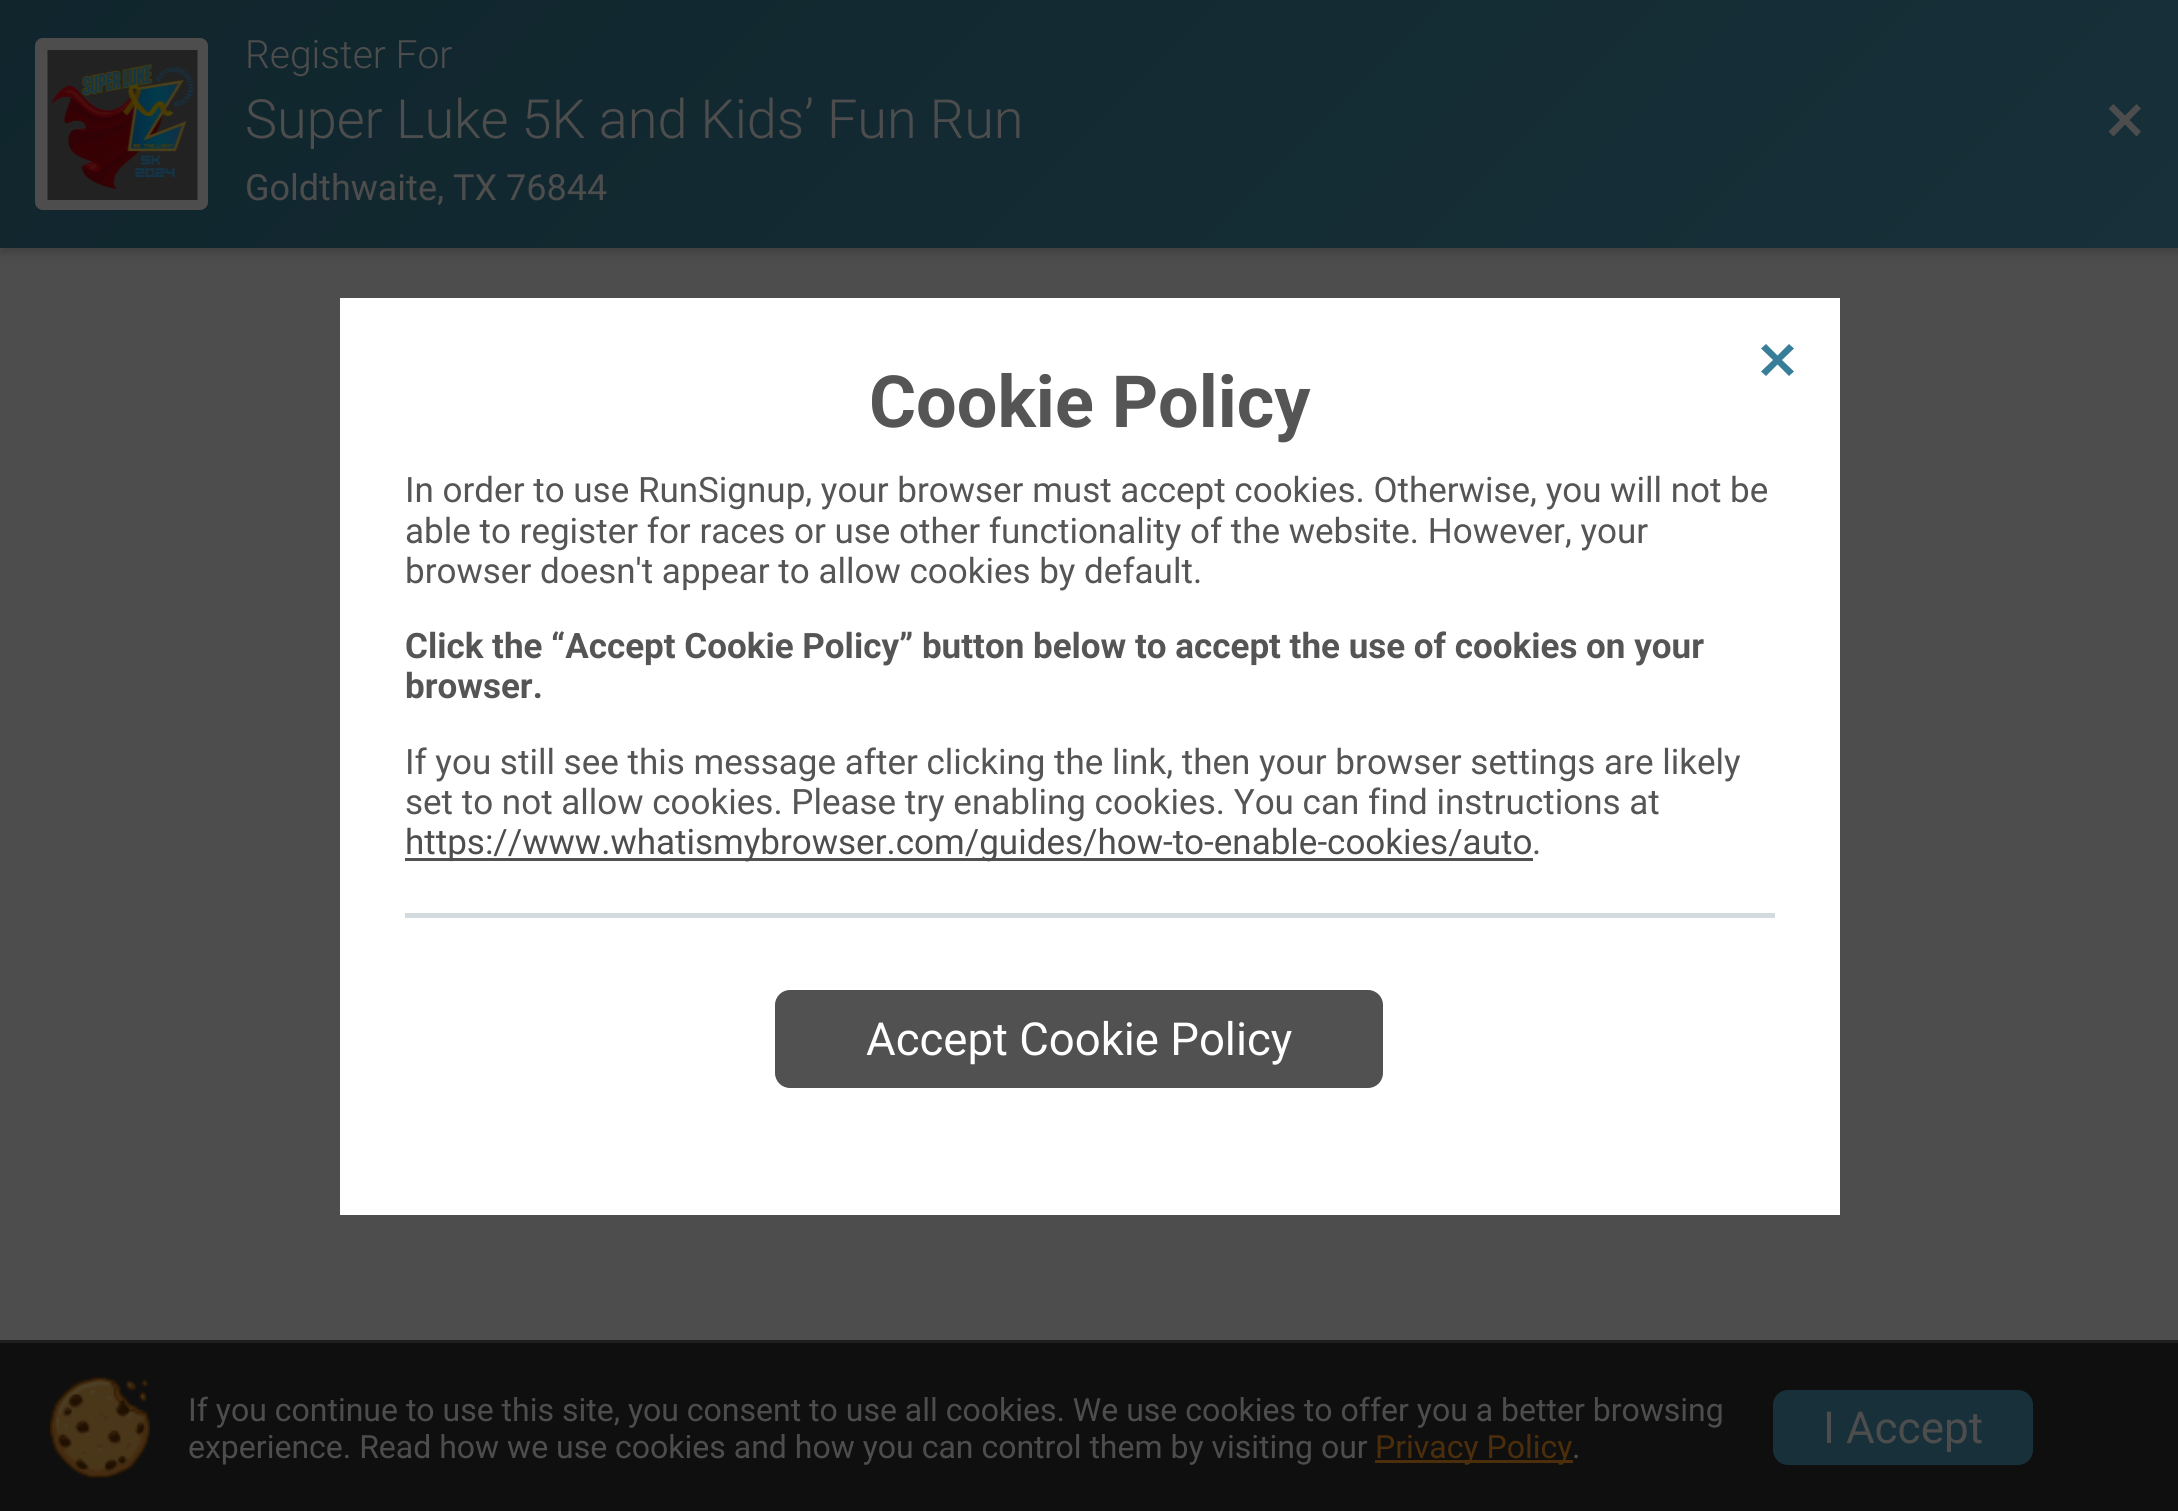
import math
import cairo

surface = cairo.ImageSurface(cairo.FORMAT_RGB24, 2178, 1511)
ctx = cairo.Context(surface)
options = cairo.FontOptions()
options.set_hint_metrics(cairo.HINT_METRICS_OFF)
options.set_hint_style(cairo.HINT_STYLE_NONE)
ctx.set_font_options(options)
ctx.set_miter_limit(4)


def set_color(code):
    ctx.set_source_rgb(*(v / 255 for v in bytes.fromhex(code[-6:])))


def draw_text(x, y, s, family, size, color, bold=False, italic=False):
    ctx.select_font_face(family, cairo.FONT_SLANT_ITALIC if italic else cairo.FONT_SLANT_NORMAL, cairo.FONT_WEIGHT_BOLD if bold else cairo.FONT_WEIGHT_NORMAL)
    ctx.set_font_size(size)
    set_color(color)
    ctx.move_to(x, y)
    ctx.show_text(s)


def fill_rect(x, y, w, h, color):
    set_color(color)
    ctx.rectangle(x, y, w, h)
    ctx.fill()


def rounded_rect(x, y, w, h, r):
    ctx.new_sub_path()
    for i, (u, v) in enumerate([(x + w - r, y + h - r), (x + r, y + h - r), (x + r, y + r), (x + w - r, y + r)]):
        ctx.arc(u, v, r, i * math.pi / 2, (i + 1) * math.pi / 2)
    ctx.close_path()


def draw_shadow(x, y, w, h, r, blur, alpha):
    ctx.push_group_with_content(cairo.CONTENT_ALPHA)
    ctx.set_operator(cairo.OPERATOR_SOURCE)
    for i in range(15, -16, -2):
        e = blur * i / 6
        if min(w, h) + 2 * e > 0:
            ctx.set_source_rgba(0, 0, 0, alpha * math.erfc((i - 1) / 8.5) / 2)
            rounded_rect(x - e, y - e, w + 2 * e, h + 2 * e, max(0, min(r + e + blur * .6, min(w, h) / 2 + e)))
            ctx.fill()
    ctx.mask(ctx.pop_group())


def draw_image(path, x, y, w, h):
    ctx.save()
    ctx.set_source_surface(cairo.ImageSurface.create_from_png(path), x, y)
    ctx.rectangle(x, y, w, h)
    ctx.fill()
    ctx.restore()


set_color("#4d4d4d")
ctx.paint()
set_color("#000000")
draw_shadow(0, 5, 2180, 248, 0, 5, 0.18)
gradient = cairo.LinearGradient(1697, 731, 483, -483)
gradient.add_color_stop_rgba(0, 0.09, 0.188, 0.224, 1)
gradient.add_color_stop_rgba(1, 0.063, 0.145, 0.173, 1)
ctx.set_source(gradient)
ctx.rectangle(0, 0, 2178, 248)
ctx.fill()
set_color("#4d4d4d")
rounded_rect(35, 38, 173, 172, 8)
ctx.fill()
draw_image("assets/img1.png", 47, 50, 151, 150)
draw_text(245, 68, "Register For", "Roboto Light", 39, "#4d4d4d")
draw_text(245, 138, "Super Luke 5K and Kids’ Fun Run", "Roboto Light", 54, "#4d4d4d")
draw_text(245, 200, "Goldthwaite, TX 76844", "Roboto", 36, "#4d4d4d")
ctx.new_path()
ctx.move_to(2108.5, 131.5)
ctx.line_to(2120, 120)
ctx.line_to(2108.5, 108.5)
ctx.line_to(2113.5, 104)
ctx.line_to(2125, 115.5)
ctx.line_to(2136.5, 104)
ctx.line_to(2141, 108.5)
ctx.line_to(2129.5, 120)
ctx.line_to(2141, 131.5)
ctx.line_to(2136.5, 136.5)
ctx.line_to(2125, 124.5)
ctx.line_to(2113.5, 136.5)
ctx.close_path()
ctx.fill()
ctx.rectangle(341.5, 299.5, 1497, 914)
set_color("#ffffff")
ctx.set_line_width(3)
ctx.stroke()
fill_rect(343, 301, 1494, 911, "#ffffff")
set_color("#387e99")
ctx.new_path()
ctx.move_to(1761, 371.5)
ctx.line_to(1773, 360)
ctx.line_to(1761, 348.5)
ctx.line_to(1766, 344)
ctx.line_to(1777.5, 355.5)
ctx.line_to(1789, 344)
ctx.line_to(1794, 348.5)
ctx.line_to(1782, 360)
ctx.line_to(1794, 371.5)
ctx.line_to(1789, 376)
ctx.line_to(1777.5, 364.5)
ctx.line_to(1766, 376)
ctx.close_path()
ctx.fill()
draw_text(869, 427, "Cookie Policy", "Roboto", 72, "#555555", bold=True)
draw_text(405, 502, "In order to use RunSignup, your browser must accept cookies. Otherwise, you will not be", "Roboto", 35, "#555555")
draw_text(405, 543, "able to register for races or use other functionality of the website. However, your", "Roboto", 35, "#555555")
draw_text(405, 583, "browser doesn't appear to allow cookies by default.", "Roboto", 35, "#555555")
draw_text(405, 658, "Click the “Accept Cookie Policy” button below to accept the use of cookies on your", "Roboto", 35, "#555555", bold=True)
draw_text(405, 698, "browser.", "Roboto", 35, "#555555", bold=True)
draw_text(405, 774, "If you still see this message after clicking the link, then your browser settings are likely", "Roboto", 35, "#555555")
draw_text(405, 814, "set to not allow cookies. Please try enabling cookies. You can find instructions at", "Roboto", 35, "#555555")
fill_rect(405, 858, 1128, 3, "#515151")
draw_text(405, 854, "https://www.whatismybrowser.com/guides/how-to-enable-cookies/auto", "Roboto", 35, "#4d4d4d")
draw_text(1532, 854, ".", "Roboto", 35, "#555555")
fill_rect(405, 913, 1370, 5, "#d3dbdf")
set_color("#515151")
rounded_rect(775, 990, 608, 98, 15)
ctx.fill()
draw_text(866, 1055, "Accept Cookie Policy", "Roboto", 45.5, "#ffffff")
fill_rect(0, 1343, 2178, 168, "#0f0f0f")
fill_rect(0, 1340, 2178, 3, "#1f1f1f")
draw_image("assets/img2.png", 50, 1377, 100, 102)
draw_text(188, 1421, "If you continue to use this site, you consent to use all cookies. We use cookies to offer you a better browsing", "Roboto", 32, "#4d4d4d")
draw_text(188, 1458, "experience. Read how we use cookies and how you can control them by visiting our", "Roboto", 32, "#4d4d4d")
fill_rect(1375, 1460, 198, 3, "#4c2e0b")
draw_text(1375, 1458, "Privacy Policy", "Roboto", 32, "#4c2e0b")
draw_text(1572, 1458, ".", "Roboto", 32, "#4d4d4d")
set_color("#173039")
rounded_rect(1773, 1390, 260, 75, 15)
ctx.fill()
draw_text(1823, 1443, "I Accept", "Roboto", 44, "#4d4d4d")
surface.write_to_png("output.png")
